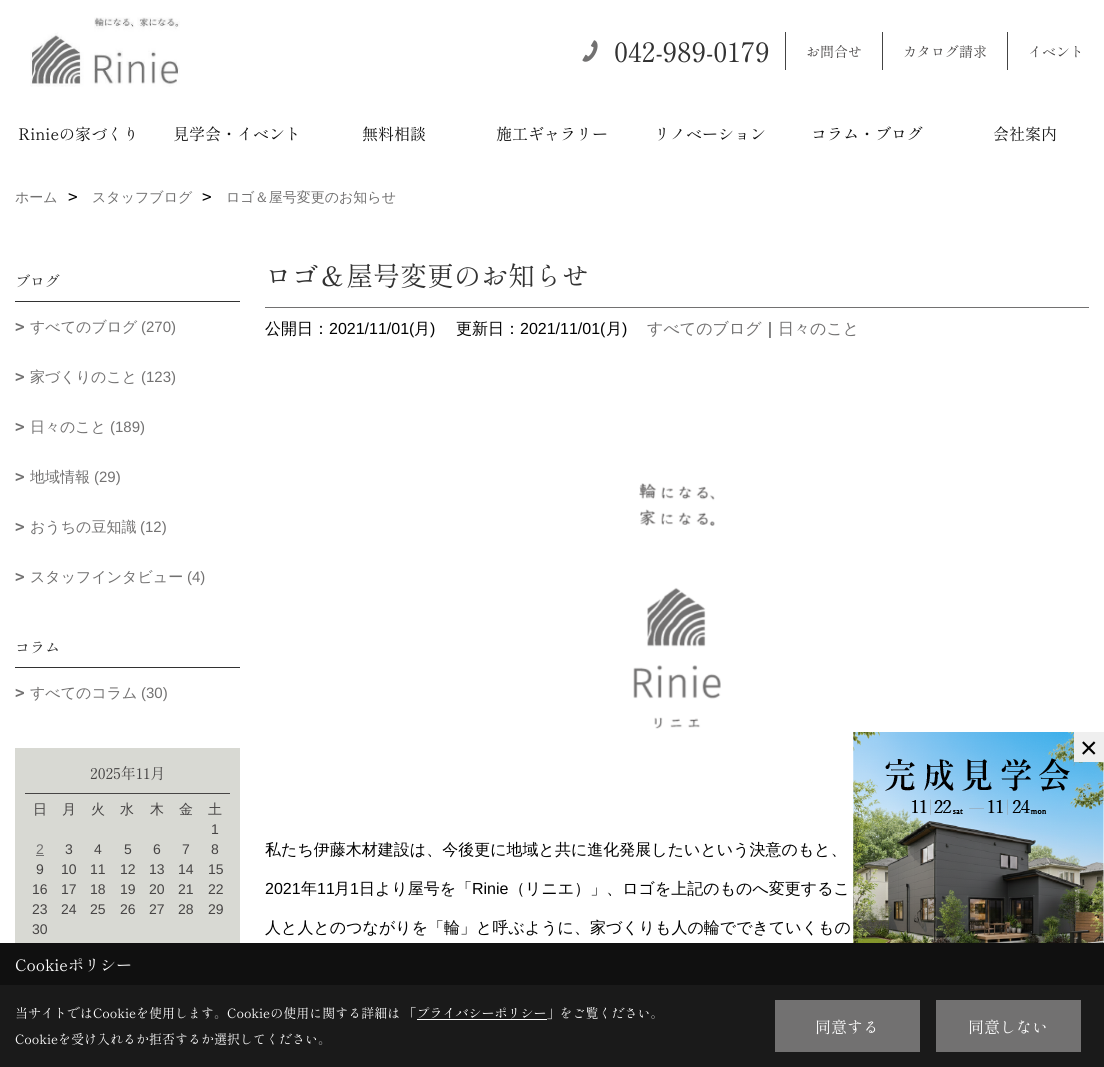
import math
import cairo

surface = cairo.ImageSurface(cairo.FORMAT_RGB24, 1104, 1067)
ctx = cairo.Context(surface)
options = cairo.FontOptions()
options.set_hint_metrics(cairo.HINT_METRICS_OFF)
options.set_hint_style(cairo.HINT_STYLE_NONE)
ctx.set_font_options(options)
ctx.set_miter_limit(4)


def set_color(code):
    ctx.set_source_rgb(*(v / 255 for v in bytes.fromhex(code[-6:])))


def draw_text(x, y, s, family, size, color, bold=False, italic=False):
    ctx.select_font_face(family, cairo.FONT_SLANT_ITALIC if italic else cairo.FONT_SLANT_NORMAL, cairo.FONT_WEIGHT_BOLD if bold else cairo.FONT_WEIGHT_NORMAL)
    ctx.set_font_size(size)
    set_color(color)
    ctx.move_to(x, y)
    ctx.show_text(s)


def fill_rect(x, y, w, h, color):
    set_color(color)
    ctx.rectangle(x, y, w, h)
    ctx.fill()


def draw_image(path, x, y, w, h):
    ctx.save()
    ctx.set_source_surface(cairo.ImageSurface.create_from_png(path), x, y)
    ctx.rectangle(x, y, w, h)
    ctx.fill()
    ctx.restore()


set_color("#ffffff")
ctx.paint()
draw_image("assets/img1.png", 30, 17, 150, 70)
draw_image("assets/img2.png", 582, 40, 16, 22)
draw_text(614, 62, "042-989-0179", "Shippori Mincho", 27, "#323232")
fill_rect(785, 32, 1, 38, "#444444")
draw_text(806, 57, "お問合せ", "Shippori Mincho", 14, "#464444")
fill_rect(882, 32, 1, 38, "#444444")
draw_text(903, 57, "カタログ請求", "Shippori Mincho", 14, "#464444")
fill_rect(1007, 32, 1, 38, "#444444")
draw_text(1028, 57, "イベント", "Shippori Mincho", 14, "#464444")
draw_text(18, 140, "Rinieの家づくり", "Shippori Mincho", 16, "#101010")
draw_text(173, 140, "見学会・イベント", "Shippori Mincho", 16, "#101010")
draw_text(362, 140, "無料相談", "Shippori Mincho", 16, "#101010")
draw_text(496, 140, "施工ギャラリー", "Shippori Mincho", 16, "#101010")
draw_text(654, 140, "リノベーション", "Shippori Mincho", 16, "#101010")
draw_text(811, 140, "コラム・ブログ", "Shippori Mincho", 16, "#101010")
draw_text(993, 140, "会社案内", "Shippori Mincho", 16, "#101010")
draw_text(15, 202, "ホーム", "WenQuanYi Zen Hei Medium", 14, "#727171")
draw_text(68, 202, ">", "DejaVu Sans Mono", 16, "#000000")
draw_text(92, 202, "スタッフブログ", "WenQuanYi Zen Hei Medium", 14, "#727171")
draw_text(202, 202, ">", "DejaVu Sans Mono", 16, "#000000")
draw_text(226, 202, "ロゴ＆屋号変更のお知らせ", "WenQuanYi Zen Hei Medium", 14, "#727171")
fill_rect(15, 301, 225, 1, "#323232")
draw_text(15, 287, "ブログ", "Shippori Mincho", 15, "#323232")
draw_text(15, 332, ">", "DejaVu Sans Mono", 16, "#727171", bold=True)
draw_text(30, 332, "すべてのブログ", "WenQuanYi Zen Hei Medium", 15, "#727171")
draw_text(141, 332, "(270)", "Liberation Sans", 15, "#727171")
draw_text(15, 382, ">", "DejaVu Sans Mono", 16, "#727171", bold=True)
draw_text(30, 382, "家づくりのこと", "WenQuanYi Zen Hei Medium", 15, "#727171")
draw_text(141, 382, "(123)", "Liberation Sans", 15, "#727171")
draw_text(15, 432, ">", "DejaVu Sans Mono", 16, "#727171", bold=True)
draw_text(30, 432, "日々のこと", "WenQuanYi Zen Hei Medium", 15, "#727171")
draw_text(110, 432, "(189)", "Liberation Sans", 15, "#727171")
draw_text(15, 482, ">", "DejaVu Sans Mono", 16, "#727171", bold=True)
draw_text(30, 482, "地域情報", "WenQuanYi Zen Hei Medium", 15, "#727171")
draw_text(94, 482, "(29)", "Liberation Sans", 15, "#727171")
draw_text(15, 532, ">", "DejaVu Sans Mono", 16, "#727171", bold=True)
draw_text(30, 532, "おうちの豆知識", "WenQuanYi Zen Hei Medium", 15, "#727171")
draw_text(140, 532, "(12)", "Liberation Sans", 15, "#727171")
draw_text(15, 582, ">", "DejaVu Sans Mono", 16, "#727171", bold=True)
draw_text(30, 582, "スタッフインタビュー", "WenQuanYi Zen Hei Medium", 15, "#727171")
draw_text(187, 582, "(4)", "Liberation Sans", 15, "#727171")
fill_rect(15, 667, 225, 1, "#323232")
draw_text(15, 653, "コラム", "Shippori Mincho", 15, "#323232")
draw_text(15, 698, ">", "DejaVu Sans Mono", 16, "#727171", bold=True)
draw_text(30, 698, "すべてのコラム", "WenQuanYi Zen Hei Medium", 15, "#727171")
draw_text(141, 698, "(30)", "Liberation Sans", 15, "#727171")
fill_rect(15, 748, 225, 195, "#d8d9d3")
fill_rect(25, 793, 205, 1, "#464444")
draw_text(90, 779, "2025年11月", "Shippori Mincho", 15, "#464444")
draw_text(33, 814, "日", "WenQuanYi Zen Hei Medium", 14, "#464444")
draw_text(62, 814, "月", "WenQuanYi Zen Hei Medium", 14, "#464444")
draw_text(91, 814, "火", "WenQuanYi Zen Hei Medium", 14, "#464444")
draw_text(120, 814, "水", "WenQuanYi Zen Hei Medium", 14, "#464444")
draw_text(150, 814, "木", "WenQuanYi Zen Hei Medium", 14, "#464444")
draw_text(179, 814, "金", "WenQuanYi Zen Hei Medium", 14, "#464444")
draw_text(208, 814, "土", "WenQuanYi Zen Hei Medium", 14, "#464444")
draw_text(211, 834, "1", "Liberation Sans", 14, "#464444")
draw_text(36, 854, "2", "Liberation Sans", 14, "#727171")
fill_rect(36, 855, 8, 1, "#727171")
draw_text(65, 854, "3", "Liberation Sans", 14, "#464444")
draw_text(94, 854, "4", "Liberation Sans", 14, "#464444")
draw_text(124, 854, "5", "Liberation Sans", 14, "#464444")
draw_text(153, 854, "6", "Liberation Sans", 14, "#464444")
draw_text(182, 854, "7", "Liberation Sans", 14, "#464444")
draw_text(211, 854, "8", "Liberation Sans", 14, "#464444")
draw_text(36, 874, "9", "Liberation Sans", 14, "#464444")
draw_text(61, 874, "10", "Liberation Sans", 14, "#464444")
draw_text(90, 874, "11", "Liberation Sans", 14, "#464444")
draw_text(120, 874, "12", "Liberation Sans", 14, "#464444")
draw_text(149, 874, "13", "Liberation Sans", 14, "#464444")
draw_text(178, 874, "14", "Liberation Sans", 14, "#464444")
draw_text(208, 874, "15", "Liberation Sans", 14, "#464444")
draw_text(32, 894, "16", "Liberation Sans", 14, "#464444")
draw_text(61, 894, "17", "Liberation Sans", 14, "#464444")
draw_text(90, 894, "18", "Liberation Sans", 14, "#464444")
draw_text(120, 894, "19", "Liberation Sans", 14, "#464444")
draw_text(149, 894, "20", "Liberation Sans", 14, "#464444")
draw_text(178, 894, "21", "Liberation Sans", 14, "#464444")
draw_text(208, 894, "22", "Liberation Sans", 14, "#464444")
draw_text(32, 914, "23", "Liberation Sans", 14, "#464444")
draw_text(61, 914, "24", "Liberation Sans", 14, "#464444")
draw_text(90, 914, "25", "Liberation Sans", 14, "#464444")
draw_text(120, 914, "26", "Liberation Sans", 14, "#464444")
draw_text(149, 914, "27", "Liberation Sans", 14, "#464444")
draw_text(178, 914, "28", "Liberation Sans", 14, "#464444")
draw_text(208, 914, "29", "Liberation Sans", 14, "#464444")
draw_text(32, 934, "30", "Liberation Sans", 14, "#464444")
fill_rect(265, 307, 824, 1, "#727171")
draw_text(265, 286, "ロゴ＆屋号変更のお知らせ", "Shippori Mincho", 27, "#323232")
draw_text(265, 334, "公開日：", "WenQuanYi Zen Hei Medium", 16, "#000000")
draw_text(329, 334, "2021/11/01(", "Liberation Sans", 16, "#000000")
draw_text(414, 334, "月", "WenQuanYi Zen Hei Medium", 16, "#000000")
draw_text(430, 334, ")", "Liberation Sans", 16, "#000000")
draw_text(456, 334, "更新日：", "WenQuanYi Zen Hei Medium", 16, "#000000")
draw_text(520, 334, "2021/11/01(", "Liberation Sans", 16, "#000000")
draw_text(606, 334, "月", "WenQuanYi Zen Hei Medium", 16, "#000000")
draw_text(622, 334, ")", "Liberation Sans", 16, "#000000")
draw_text(647, 334, "すべてのブログ", "WenQuanYi Zen Hei Medium", 16, "#727171")
draw_text(762, 334, "｜", "WenQuanYi Zen Hei Medium", 16, "#000000")
draw_text(778, 334, "日々のこと", "WenQuanYi Zen Hei Medium", 16, "#727171")
draw_image("assets/img3.png", 633, 483, 88, 246)
draw_text(265, 855, "私たち伊藤木材建設は、今後更に地域と共に進化発展したいという決意のもと、", "WenQuanYi Zen Hei Medium", 16, "#000000")
draw_text(265, 894, "2021", "Liberation Sans", 16, "#000000")
draw_text(301, 894, "年", "WenQuanYi Zen Hei Medium", 16, "#000000")
draw_text(317, 894, "11", "Liberation Sans", 16, "#000000")
draw_text(334, 894, "月", "WenQuanYi Zen Hei Medium", 16, "#000000")
draw_text(350, 894, "1", "Liberation Sans", 16, "#000000")
draw_text(359, 894, "日より屋号を「", "WenQuanYi Zen Hei Medium", 16, "#000000")
draw_text(472, 894, "Rinie", "Liberation Sans", 16, "#000000")
draw_text(509, 894, "（リニエ）」、ロゴを上記のものへ変更するこ", "WenQuanYi Zen Hei Medium", 16, "#000000")
draw_text(265, 933, "人と人とのつながりを「輪」と呼ぶように、家づくりも人の輪でできていくもの", "WenQuanYi Zen Hei Medium", 16, "#000000")
draw_image("assets/img4.png", 853, 732, 251, 211)
fill_rect(1074, 732, 30, 30, "#efefef")
draw_text(1080, 758, "×", "Liberation Sans", 30, "#000000")
fill_rect(0, 943, 1104, 42, "#101010")
draw_text(15, 971, "Cookieポリシー", "Shippori Mincho", 16, "#ffffff")
fill_rect(0, 985, 1104, 82, "#1a1a1a")
draw_text(15, 1018, "当サイトではCookieを使用します。Cookieの使用に関する詳細は 「プライバシーポリシー」をご覧ください。", "Shippori Mincho", 13, "#ffffff")
fill_rect(417, 1019, 130, 1, "#ffffff")
draw_text(15, 1044, "Cookieを受け入れるか拒否するか選択してください。", "Shippori Mincho", 13, "#ffffff")
fill_rect(775, 1000, 145, 52, "#727171")
draw_text(815, 1033, "同意する", "Shippori Mincho", 16, "#ffffff")
fill_rect(936, 1000, 145, 52, "#727171")
draw_text(968, 1033, "同意しない", "Shippori Mincho", 16, "#ffffff")
surface.write_to_png("output.png")
